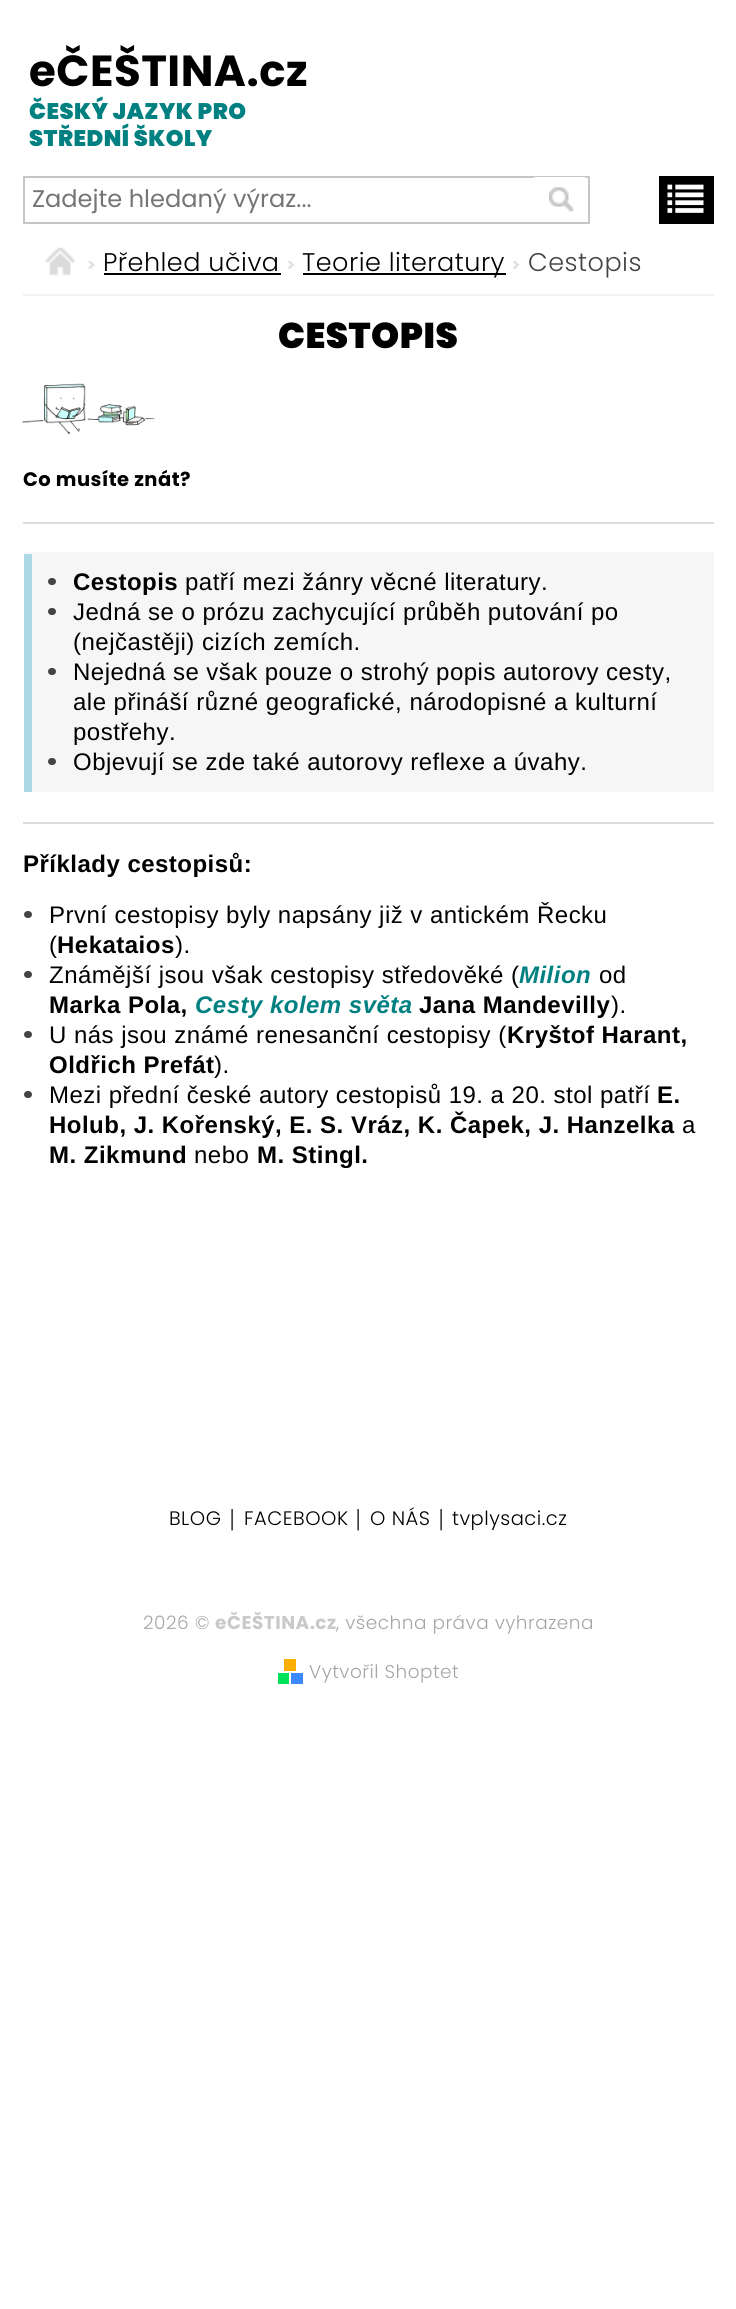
import math
import cairo

surface = cairo.ImageSurface(cairo.FORMAT_RGB24, 736, 2309)
ctx = cairo.Context(surface)
options = cairo.FontOptions()
options.set_hint_metrics(cairo.HINT_METRICS_OFF)
options.set_hint_style(cairo.HINT_STYLE_NONE)
ctx.set_font_options(options)
ctx.set_miter_limit(4)


def set_color(code):
    ctx.set_source_rgb(*(v / 255 for v in bytes.fromhex(code[-6:])))


def draw_text(x, y, s, family, size, color, bold=False, italic=False):
    ctx.select_font_face(family, cairo.FONT_SLANT_ITALIC if italic else cairo.FONT_SLANT_NORMAL, cairo.FONT_WEIGHT_BOLD if bold else cairo.FONT_WEIGHT_NORMAL)
    ctx.set_font_size(size)
    set_color(color)
    ctx.move_to(x, y)
    ctx.show_text(s)


def draw_spaced(x, y, s, letter, word):
    ctx.move_to(x, y)
    for ch in s:
        ctx.show_text(ch)
        ctx.rel_move_to(letter + word * (ch == ' '), 0)


def fill_rect(x, y, w, h, color):
    set_color(color)
    ctx.rectangle(x, y, w, h)
    ctx.fill()


def rounded_rect(x, y, w, h, r):
    ctx.new_sub_path()
    for i, (u, v) in enumerate([(x + w - r, y + h - r), (x + r, y + h - r), (x + r, y + r), (x + w - r, y + r)]):
        ctx.arc(u, v, r, i * math.pi / 2, (i + 1) * math.pi / 2)
    ctx.close_path()


def draw_image(path, x, y, w, h):
    ctx.save()
    ctx.set_source_surface(cairo.ImageSurface.create_from_png(path), x, y)
    ctx.rectangle(x, y, w, h)
    ctx.fill()
    ctx.restore()


set_color("#ffffff")
ctx.paint()
ctx.select_font_face("Poppins", cairo.FONT_SLANT_NORMAL, cairo.FONT_WEIGHT_BOLD)
ctx.set_font_size(43.5)
set_color("#000000")
draw_spaced(29, 86, "eČEŠTINA.cz", 0.48, 0)
ctx.select_font_face("Poppins Black")
ctx.set_font_size(22.5)
set_color("#008080")
draw_spaced(29, 119, "ČESKÝ JAZYK PRO", 0.48, 0)
draw_spaced(29, 146, "STŘEDNÍ ŠKOLY", 0.48, 0)
ctx.rectangle(24, 177, 565, 46)
set_color("#c6c6c6")
ctx.stroke()
draw_text(32, 207, "Zadejte hledaný výraz...", "Poppins", 24.1, "#757575")
fill_rect(534, 177, 51, 1, "#ffffff")
draw_image("assets/img1.png", 549, 187, 25, 25)
fill_rect(659, 176, 55, 48, "#000000")
draw_image("assets/img2.png", 667, 184, 37, 29)
fill_rect(23, 294, 691, 2, "#f2f2f2")
draw_image("assets/img3.png", 45, 247, 30, 29)
draw_image("assets/img4.png", 88, 260, 7, 9)
ctx.select_font_face("Poppins Light")
ctx.set_font_size(25.5)
set_color("#000000")
draw_spaced(103, 271, "Přehled učiva", 0.48, 0)
fill_rect(104, 273, 177, 2, "#000000")
draw_image("assets/img5.png", 288, 260, 7, 9)
fill_rect(303, 273, 203, 2, "#000000")
draw_spaced(302, 271, "Teorie literatury", 0.48, 0)
draw_image("assets/img6.png", 513, 260, 7, 9)
set_color("#444444")
draw_spaced(528, 271, "Cestopis", 0.48, 0)
ctx.select_font_face("Poppins Black")
ctx.set_font_size(35.75)
set_color("#000000")
draw_spaced(278, 348, "CESTOPIS", 0.48, 0)
draw_image("assets/img7.png", 22, 383, 133, 52)
ctx.select_font_face("Poppins", cairo.FONT_SLANT_NORMAL, cairo.FONT_WEIGHT_BOLD)
ctx.set_font_size(19.5)
draw_spaced(23, 486, "Co musíte znát?", 0.48, 0)
fill_rect(23, 522, 691, 2, "#dddddd")
set_color("#f6f6f6")
ctx.new_path()
ctx.move_to(25.5, 552)
ctx.line_to(714, 552)
ctx.line_to(714, 792)
ctx.line_to(25.5, 792)
ctx.curve_to(24.5, 792, 24, 791.5, 24, 790.5)
ctx.line_to(24, 553.5)
ctx.curve_to(24, 552.5, 24.5, 552, 25.5, 552)
ctx.close_path()
ctx.fill()
fill_rect(24, 554, 8, 238, "#add8e6")
set_color("#444444")
rounded_rect(48, 578, 8, 7, 3.5)
ctx.fill()
ctx.select_font_face("Liberation Sans", cairo.FONT_SLANT_NORMAL, cairo.FONT_WEIGHT_BOLD)
ctx.set_font_size(24)
set_color("#000000")
draw_spaced(73, 590, "Cestopis", 0.48, 0)
ctx.select_font_face("Liberation Sans")
draw_spaced(185, 590, "patří mezi žánry věcné literatury.", 0.48, 0)
set_color("#444444")
rounded_rect(48, 608, 8, 7, 3.5)
ctx.fill()
set_color("#000000")
draw_spaced(73, 620, "Jedná se o prózu zachycující průběh putování po", 0.48, 0)
draw_spaced(73, 650, "(nejčastěji) cizích zemích.", 0.48, 0)
set_color("#444444")
rounded_rect(48, 668, 8, 7, 3.5)
ctx.fill()
set_color("#000000")
draw_spaced(73, 680, "Nejedná se však pouze o strohý popis autorovy cesty,", 0.48, 0)
draw_spaced(73, 710, "ale přináší různé geografické, národopisné a kulturní", 0.48, 0)
draw_spaced(73, 740, "postřehy.", 0.48, 0)
set_color("#444444")
rounded_rect(48, 758, 8, 7, 3.5)
ctx.fill()
set_color("#000000")
draw_spaced(73, 770, "Objevují se zde také autorovy reflexe a úvahy.", 0.48, 0)
fill_rect(23, 822, 691, 2, "#dddddd")
ctx.select_font_face("Liberation Sans", cairo.FONT_SLANT_NORMAL, cairo.FONT_WEIGHT_BOLD)
set_color("#000000")
draw_spaced(23, 872, "Příklady cestopisů:", 0.48, 0)
set_color("#444444")
rounded_rect(24, 911, 8, 7, 3.5)
ctx.fill()
ctx.select_font_face("Liberation Sans")
set_color("#000000")
draw_spaced(49, 923, "První cestopisy byly napsány již v antickém Řecku", 0.48, 0)
draw_spaced(49, 953, "(", 0.48, 0)
ctx.select_font_face("Liberation Sans", cairo.FONT_SLANT_NORMAL, cairo.FONT_WEIGHT_BOLD)
draw_spaced(57, 953, "Hekataios", 0.48, 0)
ctx.select_font_face("Liberation Sans")
draw_spaced(175, 953, ").", 0.48, 0)
set_color("#444444")
rounded_rect(24, 971, 8, 7, 3.5)
ctx.fill()
set_color("#000000")
draw_spaced(49, 983, "Známější jsou však cestopisy středověké (", 0.48, 0)
ctx.select_font_face("Liberation Sans", cairo.FONT_SLANT_ITALIC, cairo.FONT_WEIGHT_BOLD)
set_color("#008080")
draw_spaced(519, 983, "Milion", 0.48, 0)
ctx.select_font_face("Liberation Sans")
set_color("#000000")
draw_spaced(599, 983, "od", 0.48, 0)
ctx.select_font_face("Liberation Sans", cairo.FONT_SLANT_NORMAL, cairo.FONT_WEIGHT_BOLD)
draw_spaced(49, 1013, "Marka Pola,", 0.48, 0)
ctx.select_font_face("Liberation Sans", cairo.FONT_SLANT_ITALIC, cairo.FONT_WEIGHT_BOLD)
set_color("#008080")
draw_spaced(195, 1013, "Cesty kolem světa", 0.48, 0)
ctx.select_font_face("Liberation Sans", cairo.FONT_SLANT_NORMAL, cairo.FONT_WEIGHT_BOLD)
set_color("#000000")
draw_spaced(419, 1013, "Jana Mandevilly", 0.48, 0)
ctx.select_font_face("Liberation Sans")
draw_spaced(611, 1013, ").", 0.48, 0)
set_color("#444444")
rounded_rect(24, 1031, 8, 7, 3.5)
ctx.fill()
set_color("#000000")
draw_spaced(49, 1043, "U nás jsou známé renesanční cestopisy (", 0.48, 0)
ctx.select_font_face("Liberation Sans", cairo.FONT_SLANT_NORMAL, cairo.FONT_WEIGHT_BOLD)
draw_spaced(507, 1043, "Kryštof Harant,", 0.48, 0)
draw_spaced(49, 1073, "Oldřich Prefát", 0.48, 0)
ctx.select_font_face("Liberation Sans")
draw_spaced(214, 1073, ").", 0.48, 0)
set_color("#444444")
rounded_rect(24, 1091, 8, 7, 3.5)
ctx.fill()
set_color("#000000")
draw_spaced(49, 1103, "Mezi přední české autory cestopisů 19. a 20. stol patří", 0.48, 0)
ctx.select_font_face("Liberation Sans", cairo.FONT_SLANT_NORMAL, cairo.FONT_WEIGHT_BOLD)
draw_spaced(657, 1103, "E.", 0.48, 0)
draw_spaced(49, 1133, "Holub, J. Kořenský, E. S. Vráz, K. Čapek, J. Hanzelka", 0.48, 0)
ctx.select_font_face("Liberation Sans")
draw_spaced(682, 1133, "a", 0.48, 0)
ctx.select_font_face("Liberation Sans", cairo.FONT_SLANT_NORMAL, cairo.FONT_WEIGHT_BOLD)
draw_spaced(49, 1163, "M. Zikmund", 0.48, 0)
ctx.select_font_face("Liberation Sans")
draw_spaced(194, 1163, "nebo", 0.48, 0)
ctx.select_font_face("Liberation Sans", cairo.FONT_SLANT_NORMAL, cairo.FONT_WEIGHT_BOLD)
draw_spaced(257, 1163, "M. Stingl.", 0.48, 0)
ctx.select_font_face("Poppins Light")
ctx.set_font_size(19.5)
draw_spaced(169, 1525, "BLOG", 0.48, 0)
ctx.set_font_size(24)
set_color("#444444")
draw_spaced(229, 1528, "|", 0.48, 0)
ctx.set_font_size(19.5)
set_color("#000000")
draw_spaced(244, 1525, "FACEBOOK", 0.48, 0)
ctx.set_font_size(24)
set_color("#444444")
draw_spaced(355, 1528, "|", 0.48, 0)
ctx.set_font_size(19.5)
set_color("#000000")
draw_spaced(370, 1525, "O NÁS", 0.48, 0)
ctx.set_font_size(24)
set_color("#444444")
draw_spaced(438, 1528, "|", 0.48, 0)
ctx.set_font_size(19.5)
set_color("#000000")
draw_spaced(452, 1525, "tvplysaci.cz", 0.48, 0)
ctx.set_font_size(18.5)
set_color("#a6a6a6")
draw_spaced(143, 1629, "2026 ©", 0.48, 0)
ctx.select_font_face("Poppins", cairo.FONT_SLANT_NORMAL, cairo.FONT_WEIGHT_BOLD)
set_color("#c9c9c9")
draw_spaced(215, 1629, "eČEŠTINA.cz", 0.48, 0)
ctx.select_font_face("Poppins Light")
set_color("#a6a6a6")
draw_spaced(336, 1629, ", všechna práva vyhrazena", 0.48, 0)
fill_rect(284, 1659, 12, 12, "#fcaf00")
fill_rect(278, 1673, 11, 11, "#00e25a")
fill_rect(291, 1673, 12, 11, "#3b88ff")
set_color("#a6a6a6")
draw_spaced(309, 1678, "Vytvořil Shoptet", 0.48, 0)
surface.write_to_png("output.png")
